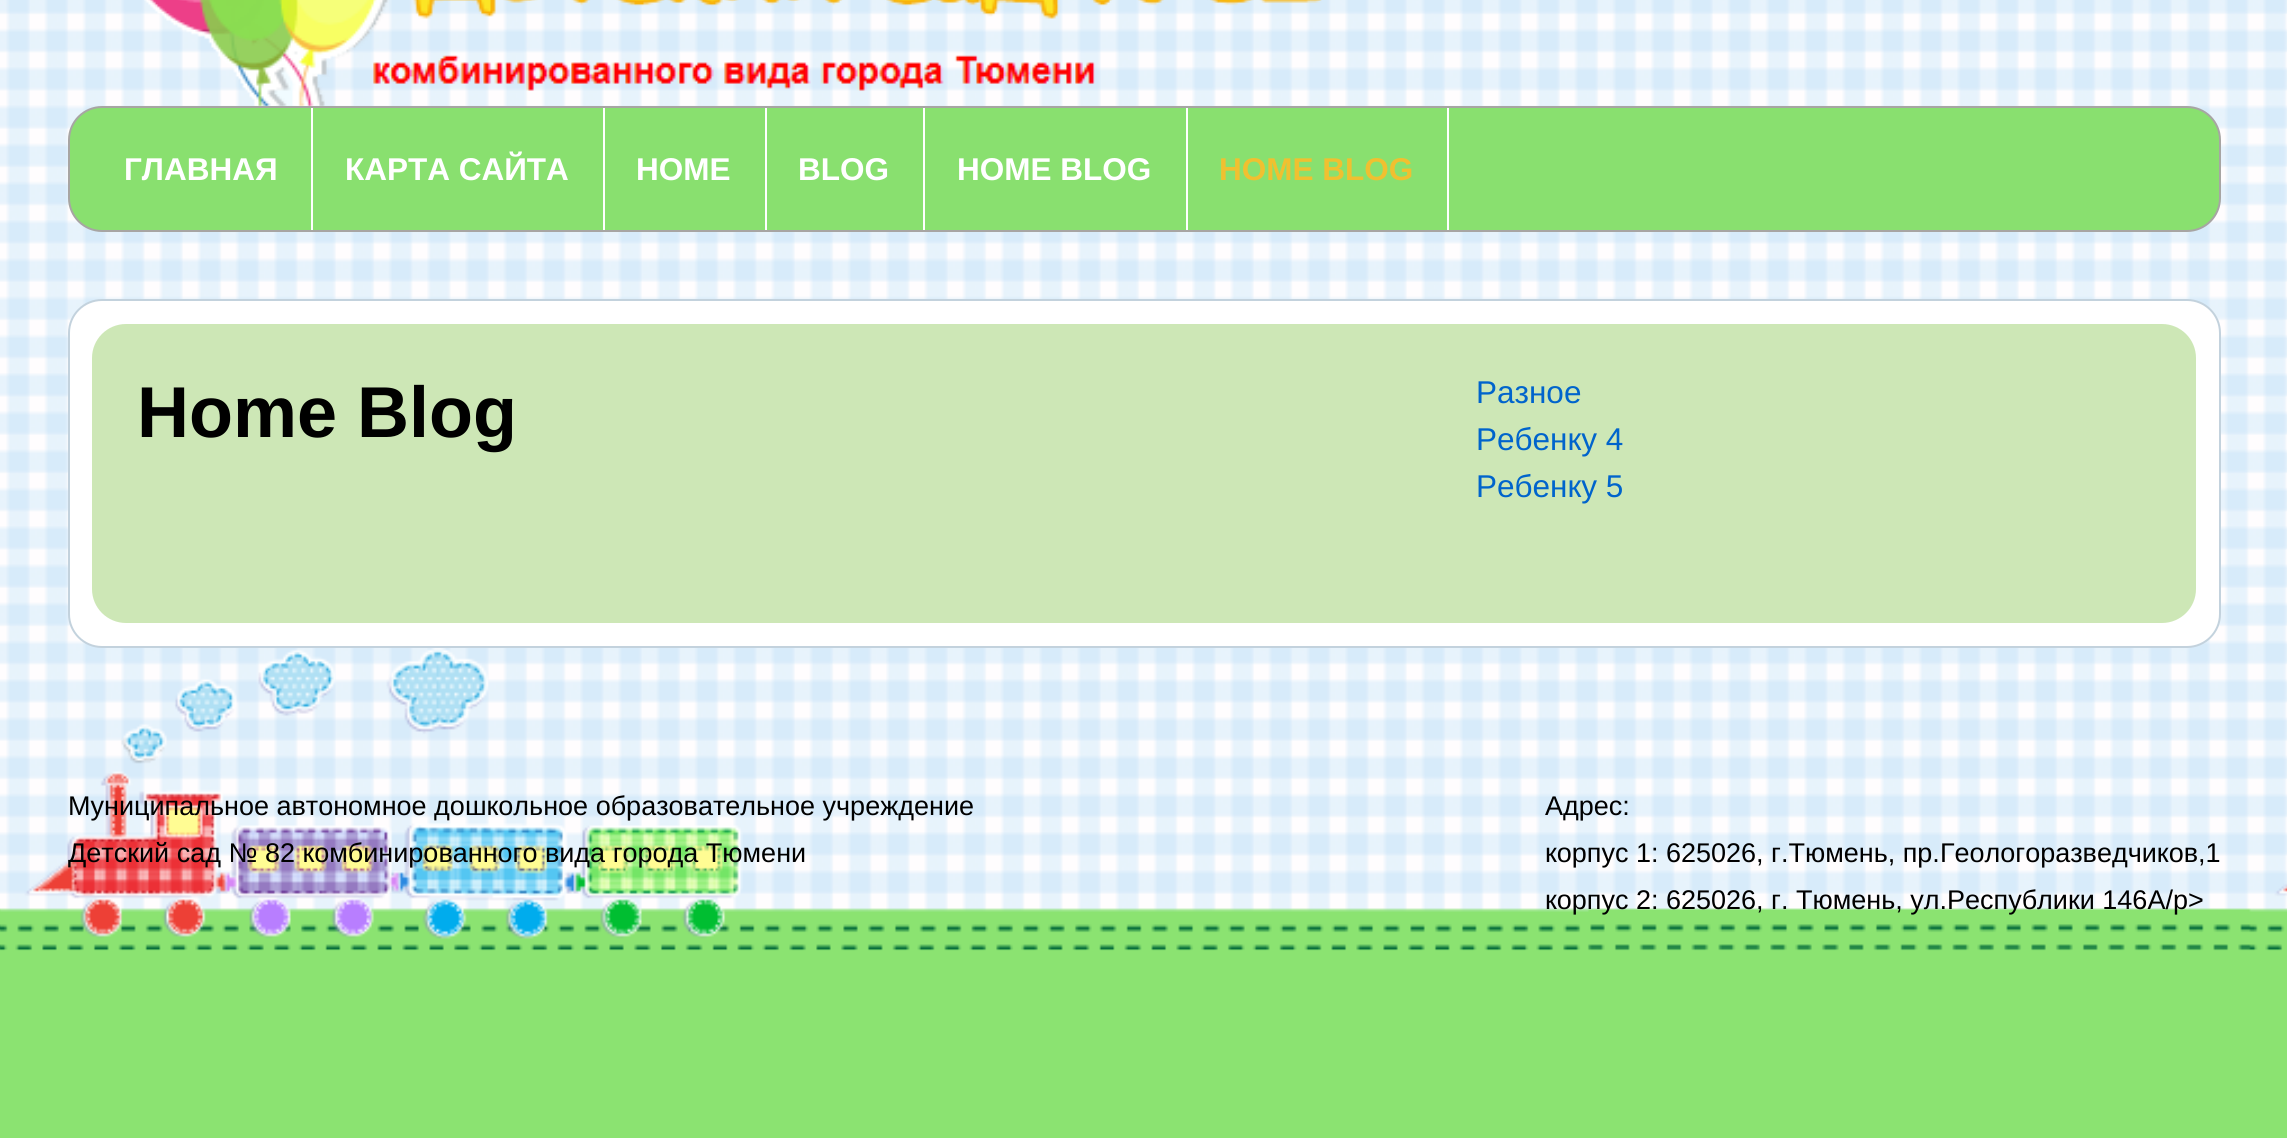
import math
import cairo

surface = cairo.ImageSurface(cairo.FORMAT_RGB24, 2287, 1138)
ctx = cairo.Context(surface)
options = cairo.FontOptions()
options.set_hint_metrics(cairo.HINT_METRICS_OFF)
options.set_hint_style(cairo.HINT_STYLE_NONE)
ctx.set_font_options(options)
ctx.set_miter_limit(4)


def set_color(code):
    ctx.set_source_rgb(*(v / 255 for v in bytes.fromhex(code[-6:])))


def draw_text(x, y, s, family, size, color, bold=False, italic=False):
    ctx.select_font_face(family, cairo.FONT_SLANT_ITALIC if italic else cairo.FONT_SLANT_NORMAL, cairo.FONT_WEIGHT_BOLD if bold else cairo.FONT_WEIGHT_NORMAL)
    ctx.set_font_size(size)
    set_color(color)
    ctx.move_to(x, y)
    ctx.show_text(s)


def fill_rect(x, y, w, h, color):
    set_color(color)
    ctx.rectangle(x, y, w, h)
    ctx.fill()


def rounded_rect(x, y, w, h, r):
    ctx.new_sub_path()
    for i, (u, v) in enumerate([(x + w - r, y + h - r), (x + r, y + h - r), (x + r, y + r), (x + w - r, y + r)]):
        ctx.arc(u, v, r, i * math.pi / 2, (i + 1) * math.pi / 2)
    ctx.close_path()


def draw_image(path, x, y, w, h):
    ctx.save()
    ctx.set_source_surface(cairo.ImageSurface.create_from_png(path), x, y)
    ctx.rectangle(x, y, w, h)
    ctx.fill()
    ctx.restore()


set_color("#ffffff")
ctx.paint()
draw_image("assets/img1.png", 0, 0, 2287, 912)
draw_image("assets/img2.png", 144, 0, 1178, 106)
set_color("#89e06f")
rounded_rect(69, 107, 2151, 124, 33)
ctx.fill_preserve()
set_color("#a7a5a3")
ctx.stroke()
fill_rect(311, 108, 2, 122, "#ffffff")
draw_text(124, 180, "ГЛАВНАЯ", "Liberation Sans", 31.5, "#ffffff", bold=True)
fill_rect(603, 108, 2, 122, "#ffffff")
draw_text(345, 180, "КАРТА САЙТА", "Liberation Sans", 31.5, "#ffffff", bold=True)
fill_rect(765, 108, 2, 122, "#ffffff")
draw_text(636, 180, "HOME", "Liberation Sans", 31.5, "#ffffff", bold=True)
fill_rect(923, 108, 2, 122, "#ffffff")
draw_text(798, 180, "BLOG", "Liberation Sans", 31.5, "#ffffff", bold=True)
fill_rect(1186, 108, 2, 122, "#ffffff")
draw_text(957, 180, "HOME BLOG", "Liberation Sans", 31.5, "#ffffff", bold=True)
fill_rect(1447, 108, 2, 122, "#ffffff")
draw_text(1219, 180, "HOME BLOG", "Liberation Sans", 31.5, "#f0c030", bold=True)
set_color("#ffffff")
rounded_rect(69, 300, 2151, 347, 33)
ctx.fill_preserve()
set_color("#c3d2dd")
ctx.stroke()
set_color("#cde7b6")
rounded_rect(92, 324, 2104, 299, 34)
ctx.fill()
draw_text(137, 437, "Home Blog", "Liberation Sans", 72, "#000000", bold=True)
draw_text(1476, 403, "Разное", "Liberation Sans", 31.5, "#0064cc")
draw_text(1476, 450, "Ребенку 4", "Liberation Sans", 31.5, "#0064cc")
draw_text(1476, 497, "Ребенку 5", "Liberation Sans", 31.5, "#0064cc")
draw_image("assets/img3.png", 0, 648, 2287, 490)
draw_text(68, 815, "Муниципальное автономное дошкольное образовательное учреждение", "Liberation Sans", 27, "#000000")
draw_text(68, 862, "Детский сад № 82 комбинированного вида города Тюмени", "Liberation Sans", 27, "#000000")
draw_text(1545, 815, "Адрес:", "Liberation Sans", 27, "#000000")
draw_text(1545, 862, "корпус 1: 625026, г.Тюмень, пр.Геологоразведчиков,1", "Liberation Sans", 27, "#000000")
draw_text(1545, 909, "корпус 2: 625026, г. Тюмень, ул.Республики 146А/p>", "Liberation Sans", 27, "#000000")
surface.write_to_png("output.png")
